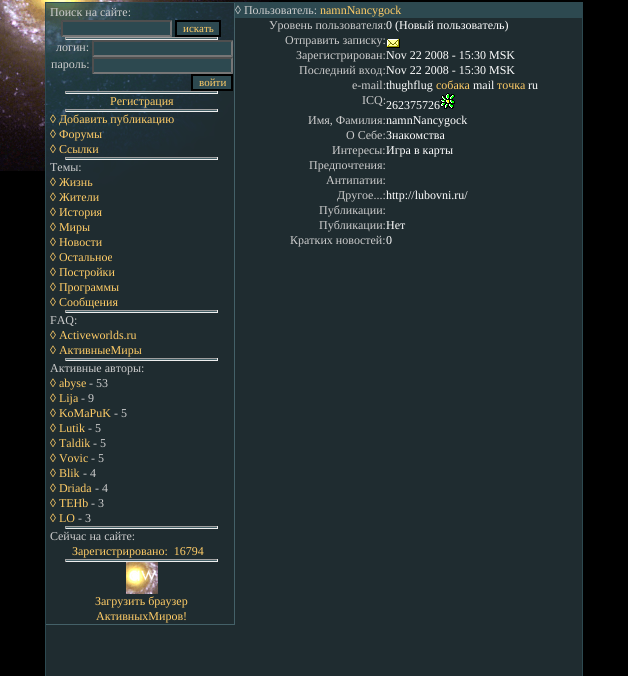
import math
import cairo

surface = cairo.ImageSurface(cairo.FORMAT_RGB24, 628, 676)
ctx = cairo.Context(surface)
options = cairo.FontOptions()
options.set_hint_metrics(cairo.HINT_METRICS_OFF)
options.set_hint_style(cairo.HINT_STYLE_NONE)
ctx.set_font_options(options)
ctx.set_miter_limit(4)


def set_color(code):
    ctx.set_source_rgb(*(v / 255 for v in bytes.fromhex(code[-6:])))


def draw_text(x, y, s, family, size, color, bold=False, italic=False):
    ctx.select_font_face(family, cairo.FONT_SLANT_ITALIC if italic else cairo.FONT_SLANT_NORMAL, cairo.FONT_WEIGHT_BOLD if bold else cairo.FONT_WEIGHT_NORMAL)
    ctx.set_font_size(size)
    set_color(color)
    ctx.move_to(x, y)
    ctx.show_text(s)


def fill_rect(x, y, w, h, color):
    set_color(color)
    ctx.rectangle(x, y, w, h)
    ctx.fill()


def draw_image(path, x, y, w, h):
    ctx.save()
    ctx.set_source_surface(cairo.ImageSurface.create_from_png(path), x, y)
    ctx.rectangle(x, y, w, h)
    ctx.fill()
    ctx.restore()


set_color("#000000")
ctx.paint()
draw_image("assets/img1.png", 0, 0, 45, 171)
draw_image("assets/img2.png", 45, 0, 228, 2)
fill_rect(46, 18, 536, 658, "#1f2c30")
fill_rect(45, 2, 538, 1, "#2d4950")
fill_rect(582, 2, 1, 674, "#2d4950")
fill_rect(45, 2, 1, 674, "#2d4950")
draw_image("assets/img3.png", 46, 3, 188, 189)
fill_rect(234, 3, 1, 622, "#446168")
fill_rect(46, 624, 189, 1, "#446168")
draw_text(50, 16, "Поиск на сайте:", "Liberation Serif", 12, "#cccccc")
fill_rect(61, 20, 111, 17, "#2d4950")
set_color("#4f4f4f")
ctx.new_path()
ctx.move_to(61, 20)
ctx.line_to(172, 20)
ctx.line_to(170, 22)
ctx.line_to(63, 22)
ctx.close_path()
ctx.fill()
set_color("#767676")
ctx.new_path()
ctx.move_to(172, 20)
ctx.line_to(172, 37)
ctx.line_to(170, 35)
ctx.line_to(170, 22)
ctx.close_path()
ctx.fill()
ctx.new_path()
ctx.move_to(172, 37)
ctx.line_to(61, 37)
ctx.line_to(63, 35)
ctx.line_to(170, 35)
ctx.close_path()
ctx.fill()
set_color("#4f4f4f")
ctx.new_path()
ctx.move_to(61, 37)
ctx.line_to(61, 20)
ctx.line_to(63, 22)
ctx.line_to(63, 35)
ctx.close_path()
ctx.fill()
set_color("#2d4950")
ctx.rectangle(176, 21, 44, 15)
ctx.fill_preserve()
set_color("#000000")
ctx.stroke()
draw_text(183, 32, "искать", "Liberation Serif", 11, "#ffcc66")
fill_rect(65, 38, 153, 1, "#446168")
fill_rect(65, 37, 153, 1, "#9f9f9f")
fill_rect(217, 37, 1, 3, "#eeeeee")
fill_rect(65, 39, 153, 1, "#eeeeee")
fill_rect(65, 37, 1, 3, "#9f9f9f")
draw_text(56, 51, "логин:", "Liberation Serif", 12, "#cccccc")
fill_rect(92, 40, 141, 34, "#2d4950")
set_color("#4f4f4f")
ctx.new_path()
ctx.move_to(92, 40)
ctx.line_to(233, 40)
ctx.line_to(231, 42)
ctx.line_to(94, 42)
ctx.close_path()
ctx.fill()
set_color("#767676")
ctx.new_path()
ctx.move_to(233, 40)
ctx.line_to(233, 57)
ctx.line_to(231, 55)
ctx.line_to(231, 42)
ctx.close_path()
ctx.fill()
ctx.new_path()
ctx.move_to(233, 57)
ctx.line_to(92, 57)
ctx.line_to(94, 55)
ctx.line_to(231, 55)
ctx.close_path()
ctx.fill()
set_color("#4f4f4f")
ctx.new_path()
ctx.move_to(92, 57)
ctx.line_to(92, 40)
ctx.line_to(94, 42)
ctx.line_to(94, 55)
ctx.close_path()
ctx.fill()
draw_text(51, 68, "пароль:", "Liberation Serif", 12, "#cccccc")
set_color("#4f4f4f")
ctx.new_path()
ctx.move_to(92, 57)
ctx.line_to(233, 57)
ctx.line_to(231, 59)
ctx.line_to(94, 59)
ctx.close_path()
ctx.fill()
set_color("#767676")
ctx.new_path()
ctx.move_to(233, 57)
ctx.line_to(233, 74)
ctx.line_to(231, 72)
ctx.line_to(231, 59)
ctx.close_path()
ctx.fill()
ctx.new_path()
ctx.move_to(233, 74)
ctx.line_to(92, 74)
ctx.line_to(94, 72)
ctx.line_to(231, 72)
ctx.close_path()
ctx.fill()
set_color("#4f4f4f")
ctx.new_path()
ctx.move_to(92, 74)
ctx.line_to(92, 57)
ctx.line_to(94, 59)
ctx.line_to(94, 72)
ctx.close_path()
ctx.fill()
set_color("#2d4950")
ctx.rectangle(192, 75, 40, 15)
ctx.fill_preserve()
set_color("#000000")
ctx.stroke()
draw_text(199, 86, "войти", "Liberation Serif", 11, "#ffcc66")
fill_rect(65, 92, 153, 1, "#446168")
fill_rect(65, 91, 153, 1, "#9f9f9f")
fill_rect(217, 91, 1, 3, "#eeeeee")
fill_rect(65, 93, 153, 1, "#eeeeee")
fill_rect(65, 91, 1, 3, "#9f9f9f")
draw_text(110, 105, "Регистрация", "Liberation Serif", 12, "#ffcc66")
fill_rect(65, 110, 153, 1, "#446168")
fill_rect(65, 109, 153, 1, "#9f9f9f")
fill_rect(217, 109, 1, 3, "#eeeeee")
fill_rect(65, 111, 153, 1, "#eeeeee")
fill_rect(65, 109, 1, 3, "#9f9f9f")
draw_text(50, 123, "◊ Добавить публикацию", "Liberation Serif", 12, "#ffcc66")
draw_text(50, 138, "◊ Форумы", "Liberation Serif", 12, "#ffcc66")
draw_text(50, 153, "◊ Ссылки", "Liberation Serif", 12, "#ffcc66")
fill_rect(65, 158, 153, 1, "#446168")
fill_rect(65, 157, 153, 1, "#9f9f9f")
fill_rect(217, 157, 1, 3, "#eeeeee")
fill_rect(65, 159, 153, 1, "#eeeeee")
fill_rect(65, 157, 1, 3, "#9f9f9f")
draw_text(50, 171, "Темы:", "Liberation Serif", 12, "#cccccc")
draw_text(50, 186, "◊ Жизнь", "Liberation Serif", 12, "#ffcc66")
draw_text(50, 201, "◊ Жители", "Liberation Serif", 12, "#ffcc66")
draw_text(50, 216, "◊ История", "Liberation Serif", 12, "#ffcc66")
draw_text(50, 231, "◊ Миры", "Liberation Serif", 12, "#ffcc66")
draw_text(50, 246, "◊ Новости", "Liberation Serif", 12, "#ffcc66")
draw_text(50, 261, "◊ Остальное", "Liberation Serif", 12, "#ffcc66")
draw_text(50, 276, "◊ Постройки", "Liberation Serif", 12, "#ffcc66")
draw_text(50, 291, "◊ Программы", "Liberation Serif", 12, "#ffcc66")
draw_text(50, 306, "◊ Сообщения", "Liberation Serif", 12, "#ffcc66")
fill_rect(65, 311, 153, 1, "#446168")
fill_rect(65, 310, 153, 1, "#9f9f9f")
fill_rect(217, 310, 1, 3, "#eeeeee")
fill_rect(65, 312, 153, 1, "#eeeeee")
fill_rect(65, 310, 1, 3, "#9f9f9f")
draw_text(50, 324, "FAQ:", "Liberation Serif", 12, "#cccccc")
draw_text(50, 339, "◊ Activeworlds.ru", "Liberation Serif", 12, "#ffcc66")
draw_text(50, 354, "◊ АктивныеМиры", "Liberation Serif", 12, "#ffcc66")
fill_rect(65, 359, 153, 1, "#446168")
fill_rect(65, 358, 153, 1, "#9f9f9f")
fill_rect(217, 358, 1, 3, "#eeeeee")
fill_rect(65, 360, 153, 1, "#eeeeee")
fill_rect(65, 358, 1, 3, "#9f9f9f")
draw_text(50, 372, "Активные авторы:", "Liberation Serif", 12, "#cccccc")
draw_text(50, 387, "◊ abyse", "Liberation Serif", 12, "#ffcc66")
draw_text(89, 387, "- 53", "Liberation Serif", 12, "#cccccc")
draw_text(50, 402, "◊ Lija", "Liberation Serif", 12, "#ffcc66")
draw_text(81, 402, "- 9", "Liberation Serif", 12, "#cccccc")
draw_text(50, 417, "◊ KoMaPuK", "Liberation Serif", 12, "#ffcc66")
draw_text(114, 417, "- 5", "Liberation Serif", 12, "#cccccc")
draw_text(50, 432, "◊ Lutik", "Liberation Serif", 12, "#ffcc66")
draw_text(88, 432, "- 5", "Liberation Serif", 12, "#cccccc")
draw_text(50, 447, "◊ Taldik", "Liberation Serif", 12, "#ffcc66")
draw_text(93, 447, "- 5", "Liberation Serif", 12, "#cccccc")
draw_text(50, 462, "◊ Vovic", "Liberation Serif", 12, "#ffcc66")
draw_text(91, 462, "- 5", "Liberation Serif", 12, "#cccccc")
draw_text(50, 477, "◊ Blik", "Liberation Serif", 12, "#ffcc66")
draw_text(83, 477, "- 4", "Liberation Serif", 12, "#cccccc")
draw_text(50, 492, "◊ Driada", "Liberation Serif", 12, "#ffcc66")
draw_text(95, 492, "- 4", "Liberation Serif", 12, "#cccccc")
draw_text(50, 507, "◊ TEHb", "Liberation Serif", 12, "#ffcc66")
draw_text(91, 507, "- 3", "Liberation Serif", 12, "#cccccc")
draw_text(50, 522, "◊ LO", "Liberation Serif", 12, "#ffcc66")
draw_text(78, 522, "- 3", "Liberation Serif", 12, "#cccccc")
fill_rect(65, 527, 153, 1, "#446168")
fill_rect(65, 526, 153, 1, "#9f9f9f")
fill_rect(217, 526, 1, 3, "#eeeeee")
fill_rect(65, 528, 153, 1, "#eeeeee")
fill_rect(65, 526, 1, 3, "#9f9f9f")
draw_text(50, 540, "Сейчас на сайте:", "Liberation Serif", 12, "#cccccc")
draw_text(72, 555, "Зарегистрировано:  16794", "Liberation Serif", 12, "#ffcc66")
fill_rect(65, 560, 153, 1, "#446168")
fill_rect(65, 559, 153, 1, "#9f9f9f")
fill_rect(217, 559, 1, 3, "#eeeeee")
fill_rect(65, 561, 153, 1, "#eeeeee")
fill_rect(65, 559, 1, 3, "#9f9f9f")
draw_image("assets/img4.png", 126, 562, 32, 32)
draw_text(95, 605, "Загрузить браузер", "Liberation Serif", 12, "#ffcc66")
draw_text(96, 620, "АктивныхМиров!", "Liberation Serif", 12, "#ffcc66")
fill_rect(235, 3, 347, 15, "#2d4950")
draw_text(235, 14, "◊ Пользователь:", "Liberation Serif", 12, "#cccccc")
draw_text(320, 14, "namnNancygock", "Liberation Serif", 12, "#ffcc66")
draw_text(269, 29, "Уровень пользователя:", "Liberation Serif", 12, "#cccccc")
draw_text(386, 29, "0 (Новый пользователь)", "Liberation Serif", 12, "#ffffff")
draw_text(285, 44, "Отправить записку:", "Liberation Serif", 12, "#cccccc")
draw_image("assets/img5.png", 387, 39, 13, 9)
draw_text(296, 59, "Зарегистрирован:", "Liberation Serif", 12, "#cccccc")
draw_text(386, 59, "Nov 22 2008 - 15:30 MSK", "Liberation Serif", 12, "#ffffff")
draw_text(299, 74, "Последний вход:", "Liberation Serif", 12, "#cccccc")
draw_text(386, 74, "Nov 22 2008 - 15:30 MSK", "Liberation Serif", 12, "#ffffff")
draw_text(352, 89, "e-mail:", "Liberation Serif", 12, "#cccccc")
draw_text(386, 89, "thughflug", "Liberation Serif", 12, "#ffffff")
draw_text(436, 89, "собака", "Liberation Serif", 12, "#ffcc66")
draw_text(473, 89, "mail", "Liberation Serif", 12, "#ffffff")
draw_text(497, 89, "точка", "Liberation Serif", 12, "#ffcc66")
draw_text(528, 89, "ru", "Liberation Serif", 12, "#ffffff")
draw_text(362, 104, "ICQ:", "Liberation Serif", 12, "#cccccc")
draw_text(386, 109, "262375726", "Liberation Serif", 12, "#ffffff")
draw_image("assets/img6.png", 440, 93, 15, 16)
draw_text(308, 124, "Имя, Фамилия:", "Liberation Serif", 12, "#cccccc")
draw_text(386, 124, "namnNancygock", "Liberation Serif", 12, "#ffffff")
draw_text(346, 139, "О Себе:", "Liberation Serif", 12, "#cccccc")
draw_text(386, 139, "Знакомства", "Liberation Serif", 12, "#ffffff")
draw_text(332, 154, "Интересы:", "Liberation Serif", 12, "#cccccc")
draw_text(386, 154, "Игра в карты", "Liberation Serif", 12, "#ffffff")
draw_text(309, 169, "Предпочтения:", "Liberation Serif", 12, "#cccccc")
draw_text(326, 184, "Антипатии:", "Liberation Serif", 12, "#cccccc")
draw_text(337, 199, "Другое...:", "Liberation Serif", 12, "#cccccc")
draw_text(386, 199, "http://lubovni.ru/", "Liberation Serif", 12, "#ffffff")
draw_text(319, 214, "Публикации:", "Liberation Serif", 12, "#cccccc")
draw_text(319, 229, "Публикации:", "Liberation Serif", 12, "#cccccc")
draw_text(386, 229, "Нет", "Liberation Serif", 12, "#ffffff")
draw_text(290, 244, "Кратких новостей:", "Liberation Serif", 12, "#cccccc")
draw_text(386, 244, "0", "Liberation Serif", 12, "#ffffff")
surface.write_to_png("output.png")
